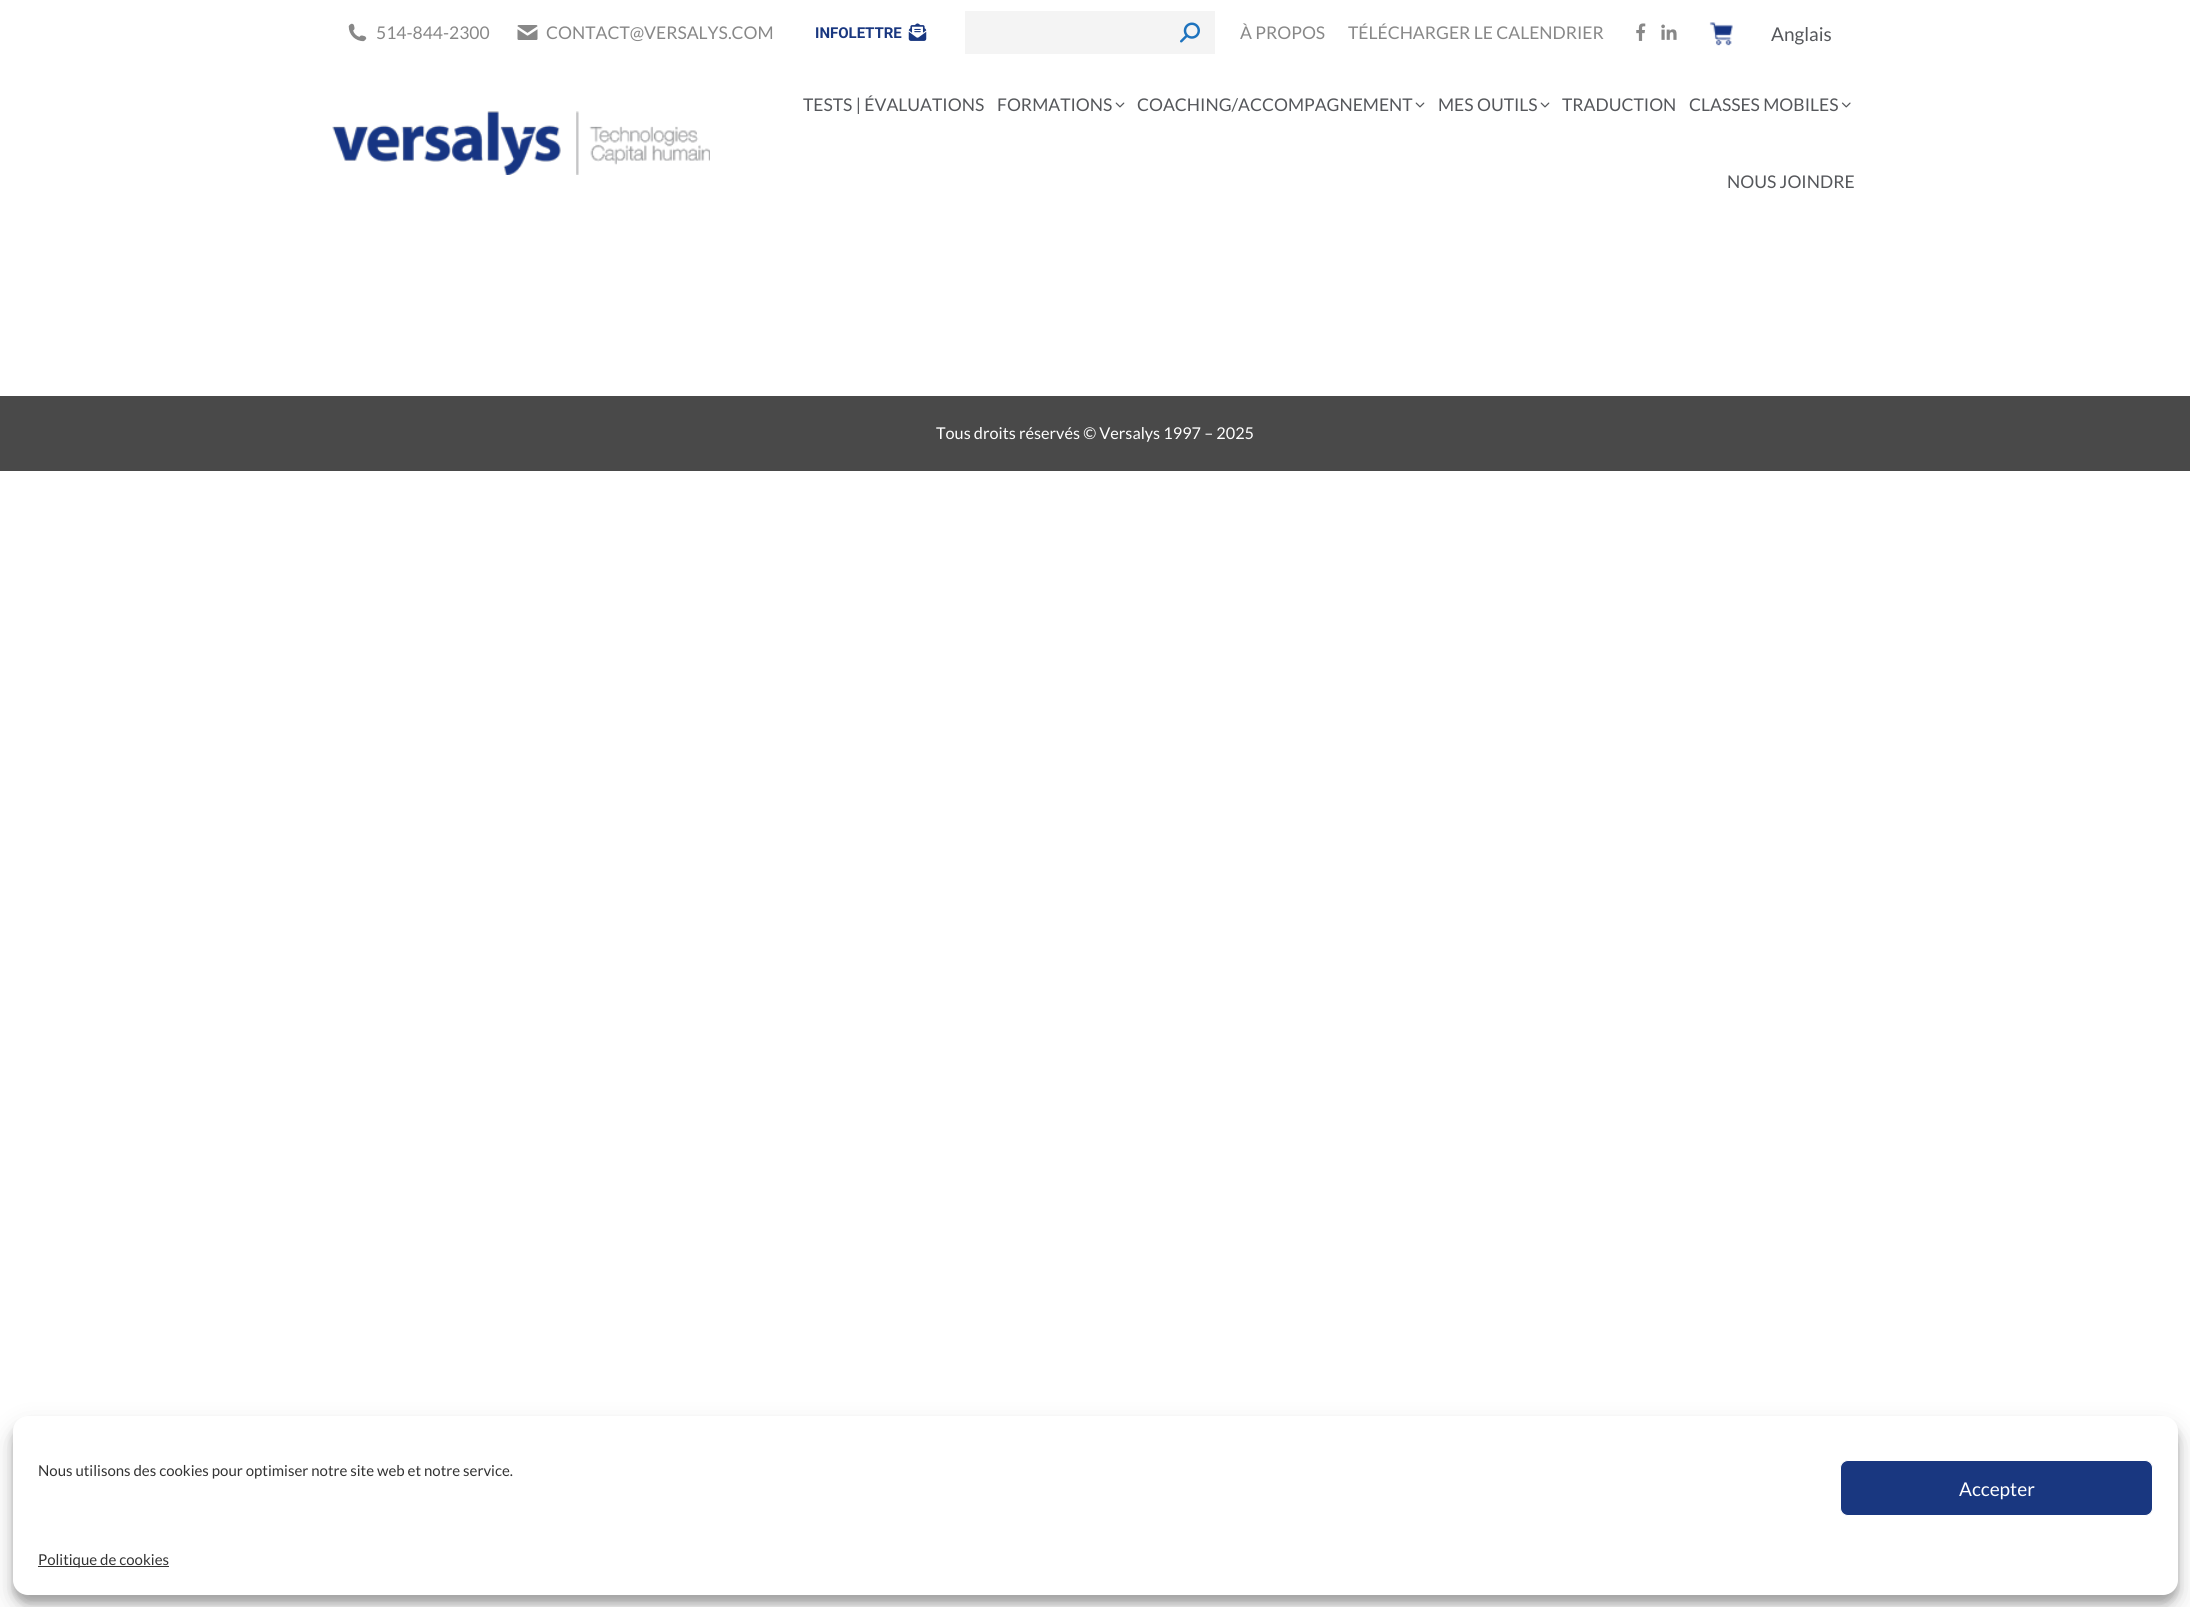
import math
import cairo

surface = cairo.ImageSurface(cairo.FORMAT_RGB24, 2190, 1607)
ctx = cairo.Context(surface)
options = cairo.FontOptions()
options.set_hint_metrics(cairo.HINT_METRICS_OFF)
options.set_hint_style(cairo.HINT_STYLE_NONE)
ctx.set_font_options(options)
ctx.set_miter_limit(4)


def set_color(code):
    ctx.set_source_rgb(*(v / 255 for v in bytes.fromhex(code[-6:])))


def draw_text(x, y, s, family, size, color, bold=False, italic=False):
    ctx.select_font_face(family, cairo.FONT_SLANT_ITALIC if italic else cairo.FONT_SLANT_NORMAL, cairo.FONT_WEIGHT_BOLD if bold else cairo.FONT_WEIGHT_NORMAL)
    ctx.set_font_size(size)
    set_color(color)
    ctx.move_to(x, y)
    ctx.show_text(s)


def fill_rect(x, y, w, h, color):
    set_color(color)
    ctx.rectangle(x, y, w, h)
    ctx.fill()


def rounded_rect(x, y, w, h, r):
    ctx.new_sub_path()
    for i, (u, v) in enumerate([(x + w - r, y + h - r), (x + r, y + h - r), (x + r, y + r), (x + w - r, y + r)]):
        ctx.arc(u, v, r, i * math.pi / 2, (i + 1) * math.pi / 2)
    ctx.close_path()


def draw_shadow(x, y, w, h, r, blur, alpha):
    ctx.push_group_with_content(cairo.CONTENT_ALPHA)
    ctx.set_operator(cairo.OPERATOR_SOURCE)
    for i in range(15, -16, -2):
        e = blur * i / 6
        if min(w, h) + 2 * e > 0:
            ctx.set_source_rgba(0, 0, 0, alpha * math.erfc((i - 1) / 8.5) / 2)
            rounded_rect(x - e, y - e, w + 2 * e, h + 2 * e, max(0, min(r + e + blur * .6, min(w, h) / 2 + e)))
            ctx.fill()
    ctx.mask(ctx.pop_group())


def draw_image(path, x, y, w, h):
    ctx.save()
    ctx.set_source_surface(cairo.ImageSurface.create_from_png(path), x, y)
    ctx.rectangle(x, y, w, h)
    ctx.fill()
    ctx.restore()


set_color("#ffffff")
ctx.paint()
draw_image("assets/img1.png", 348, 23, 19, 19)
draw_text(376, 39, "514-844-2300", "Lato", 17.5, "#888888")
draw_image("assets/img2.png", 517, 25, 21, 15)
draw_text(546, 39, "CONTACT@VERSALYS.COM", "Lato", 17.5, "#888888")
draw_text(815, 38, "INFOLETTRE", "Roboto", 15, "#193780", bold=True)
draw_image("assets/img3.png", 908, 23, 19, 18)
fill_rect(965, 11, 250, 43, "#f4f4f4")
draw_image("assets/img4.png", 1180, 22, 20, 21)
draw_text(1240, 39, "À PROPOS", "Lato", 17.5, "#888888")
draw_text(1348, 39, "TÉLÉCHARGER LE CALENDRIER", "Lato", 17.5, "#888888")
draw_image("assets/img5.png", 1636, 23, 10, 18)
draw_image("assets/img6.png", 1661, 24, 16, 16)
draw_image("assets/img7.png", 1709, 22, 24, 24)
draw_text(1771, 41, "Anglais", "Lato", 19, "#55575b")
draw_image("assets/img8.png", 332, 111, 378, 64)
draw_text(803, 111, "TESTS | ÉVALUATIONS", "Lato", 17.5, "#55575b")
draw_text(997, 111, "FORMATIONS", "Lato", 17.5, "#55575b")
draw_image("assets/img9.png", 1115, 102, 10, 6)
draw_text(1137, 111, "COACHING/ACCOMPAGNEMENT", "Lato", 17.5, "#55575b")
draw_image("assets/img9.png", 1415, 102, 10, 6)
draw_text(1438, 111, "MES OUTILS", "Lato", 17.5, "#55575b")
draw_image("assets/img9.png", 1540, 102, 10, 6)
draw_text(1562, 111, "TRADUCTION", "Lato", 17.5, "#55575b")
draw_text(1689, 111, "CLASSES MOBILES", "Lato", 17.5, "#55575b")
draw_image("assets/img10.png", 1841, 102, 10, 6)
draw_text(1727, 188, "NOUS JOINDRE", "Lato", 17.5, "#55575b")
fill_rect(0, 396, 2190, 75, "#494949")
draw_text(936, 439, "Tous droits réservés © Versalys 1997 – 2025", "Lato", 16.25, "#ffffff")
set_color("#000000")
draw_shadow(13, 1424, 2165, 179, 15, 4, 0.23)
draw_shadow(13, 1429, 2165, 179, 15, 12.5, 0.19)
set_color("#ffffff")
rounded_rect(13, 1416, 2165, 179, 15)
ctx.fill()
draw_text(38, 1476, "Nous utilisons des cookies pour optimiser notre site web et notre service.", "Lato", 15, "#333333")
set_color("#193780")
rounded_rect(1840.5, 1460.5, 312, 55, 7.5)
ctx.fill_preserve()
set_color("#ffffff")
ctx.set_line_width(1)
ctx.stroke()
draw_text(1959, 1496, "Accepter", "Lato", 19, "#ffffff")
fill_rect(38, 1566, 131, 1, "#333333")
draw_text(38, 1565, "Politique de cookies", "Lato", 15, "#333333")
surface.write_to_png("output.png")
